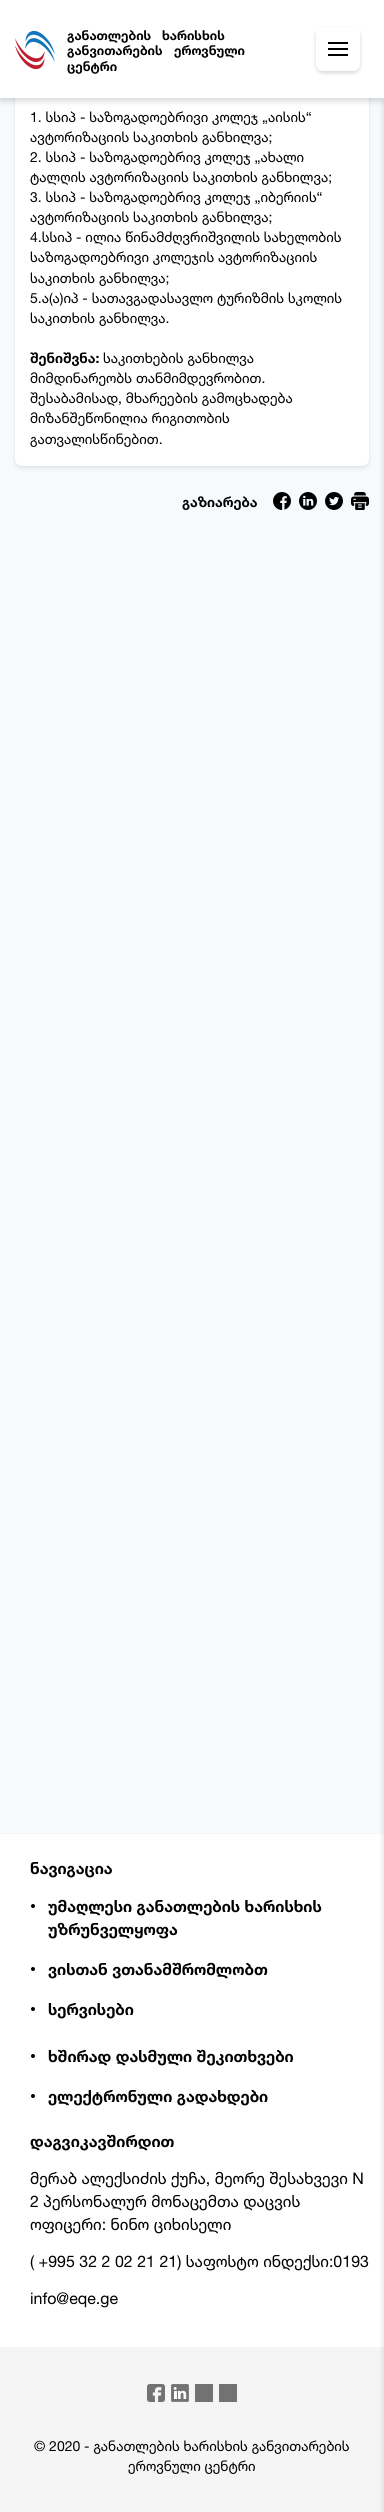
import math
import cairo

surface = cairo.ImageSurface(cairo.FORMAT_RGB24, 384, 2512)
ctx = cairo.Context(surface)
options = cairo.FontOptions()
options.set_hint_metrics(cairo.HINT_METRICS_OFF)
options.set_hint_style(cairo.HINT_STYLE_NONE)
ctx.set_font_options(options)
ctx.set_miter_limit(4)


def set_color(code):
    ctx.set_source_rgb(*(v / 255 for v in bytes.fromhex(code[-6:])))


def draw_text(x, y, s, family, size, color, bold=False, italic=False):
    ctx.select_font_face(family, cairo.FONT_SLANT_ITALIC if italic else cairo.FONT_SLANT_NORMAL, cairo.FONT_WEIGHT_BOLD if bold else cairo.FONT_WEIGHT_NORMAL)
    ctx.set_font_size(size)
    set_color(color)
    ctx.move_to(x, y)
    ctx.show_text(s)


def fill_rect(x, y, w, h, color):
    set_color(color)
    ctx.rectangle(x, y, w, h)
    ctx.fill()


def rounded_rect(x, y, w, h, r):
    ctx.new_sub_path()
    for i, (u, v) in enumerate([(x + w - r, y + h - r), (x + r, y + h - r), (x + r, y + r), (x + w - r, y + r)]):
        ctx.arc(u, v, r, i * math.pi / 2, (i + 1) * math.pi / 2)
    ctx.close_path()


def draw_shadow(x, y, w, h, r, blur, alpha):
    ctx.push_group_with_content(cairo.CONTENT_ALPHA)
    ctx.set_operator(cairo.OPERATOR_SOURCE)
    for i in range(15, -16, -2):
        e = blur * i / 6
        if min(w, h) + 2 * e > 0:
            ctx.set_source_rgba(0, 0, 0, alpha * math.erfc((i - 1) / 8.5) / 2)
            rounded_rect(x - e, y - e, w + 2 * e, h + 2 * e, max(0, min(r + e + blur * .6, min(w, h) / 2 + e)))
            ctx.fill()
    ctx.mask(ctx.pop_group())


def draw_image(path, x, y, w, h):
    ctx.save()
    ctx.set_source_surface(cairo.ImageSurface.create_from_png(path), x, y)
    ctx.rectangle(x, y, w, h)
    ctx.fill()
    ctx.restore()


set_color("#f7fafc")
ctx.paint()
set_color("#000000")
draw_shadow(15, -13, 354, 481, 7, 2, 0.1)
set_color("#ffffff")
rounded_rect(15, -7, 354, 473, 7)
ctx.fill()
set_color("#000000")
draw_shadow(0, 3, 384, 98, 0, 3, 0.16)
fill_rect(0, 0, 384, 98, "#ffffff")
draw_image("assets/img1.png", 15, 30, 40, 40)
draw_text(67, 40, "განათლების", "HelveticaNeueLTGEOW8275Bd", 13, "#000000", bold=True)
draw_text(162, 40, "ხარისხის", "HelveticaNeueLTGEOW8275Bd", 13, "#000000", bold=True)
draw_text(67, 55, "განვითარების", "HelveticaNeueLTGEOW8275Bd", 13, "#000000", bold=True)
draw_text(174, 55, "ეროვნული", "HelveticaNeueLTGEOW8275Bd", 13, "#000000", bold=True)
draw_text(67, 71, "ცენტრი", "HelveticaNeueLTGEOW8275Bd", 13, "#000000", bold=True)
set_color("#000000")
draw_shadow(316, 29, 44, 44, 7, 2, 0.16)
set_color("#ffffff")
rounded_rect(316, 27, 44, 44, 7)
ctx.fill()
fill_rect(328, 42, 20, 2, "#000000")
fill_rect(328, 48, 20, 2, "#000000")
fill_rect(328, 54, 20, 2, "#000000")
draw_text(30, 122, "1. სსიპ - საზოგადოებრივი კოლეჯ „აისის“", "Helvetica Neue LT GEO", 14, "#000000")
draw_text(30, 142, "ავტორიზაციის საკითხის განხილვა;", "Helvetica Neue LT GEO", 14, "#000000")
draw_text(30, 162, "2. სსიპ - საზოგადოებრივ კოლეჯ „ახალი", "Helvetica Neue LT GEO", 14, "#000000")
draw_text(30, 182, "ტალღის ავტორიზაციის საკითხის განხილვა;", "Helvetica Neue LT GEO", 14, "#000000")
draw_text(30, 202, "3. სსიპ - საზოგადოებრივ კოლეჯ „იბერიის“", "Helvetica Neue LT GEO", 14, "#000000")
draw_text(30, 222, "ავტორიზაციის საკითხის განხილვა;", "Helvetica Neue LT GEO", 14, "#000000")
draw_text(30, 242, "4.სსიპ - ილია წინამძღვრიშვილის სახელობის", "Helvetica Neue LT GEO", 14, "#000000")
draw_text(30, 262, "საზოგადოებრივი კოლეჯის ავტორიზაციის", "Helvetica Neue LT GEO", 14, "#000000")
draw_text(30, 283, "საკითხის განხილვა;", "Helvetica Neue LT GEO", 14, "#000000")
draw_text(30, 303, "5.ა(ა)იპ - სათავგადასავლო ტურიზმის სკოლის", "Helvetica Neue LT GEO", 14, "#000000")
draw_text(30, 323, "საკითხის განხილვა.", "Helvetica Neue LT GEO", 14, "#000000")
draw_text(30, 363, "შენიშვნა:", "HelveticaNeueLTGEOW8275Bd", 14, "#000000", bold=True)
draw_text(103, 363, "საკითხების განხილვა", "Helvetica Neue LT GEO", 14, "#000000")
draw_text(30, 383, "მიმდინარეობს თანმიმდევრობით.", "Helvetica Neue LT GEO", 14, "#000000")
draw_text(30, 403, "შესაბამისად, მხარეების გამოცხადება", "Helvetica Neue LT GEO", 14, "#000000")
draw_text(30, 423, "მიზანშეწონილია რიგითობის", "Helvetica Neue LT GEO", 14, "#000000")
draw_text(30, 444, "გათვალისწინებით.", "Helvetica Neue LT GEO", 14, "#000000")
draw_text(182, 507, "გაზიარება", "HelveticaNeueLTGEOW8275Bd", 14, "#000000", bold=True)
draw_image("assets/img2.png", 273, 492, 18, 18)
draw_image("assets/img3.png", 299, 492, 18, 18)
draw_image("assets/img4.png", 325, 492, 18, 18)
draw_image("assets/img5.png", 351, 492, 18, 18)
fill_rect(0, 1834, 384, 513, "#ffffff")
fill_rect(0, 1833, 384, 1, "#f5f5f5")
fill_rect(0, 2347, 384, 165, "#f5f5f5")
set_color("#000000")
draw_shadow(384, 101, 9, 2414, 0, 3, 0.16)
draw_text(30, 1874, "ნავიგაცია", "HelveticaNeueLTGEOW8275Bd", 16, "#000000", bold=True)
ctx.new_path()
ctx.arc(33, 1906, 2, 0, 2 * math.pi)
ctx.fill()
draw_text(48, 1912, "უმაღლესი განათლების ხარისხის", "HelveticaNeueLTGEOW8275Bd", 16, "#000000", bold=True)
draw_text(48, 1935, "უზრუნველყოფა", "HelveticaNeueLTGEOW8275Bd", 16, "#000000", bold=True)
ctx.new_path()
ctx.arc(33, 1969, 2, 0, 2 * math.pi)
ctx.fill()
draw_text(48, 1975, "ვისთან ვთანამშრომლობთ", "HelveticaNeueLTGEOW8275Bd", 16, "#000000", bold=True)
ctx.new_path()
ctx.arc(33, 2009, 2, 0, 2 * math.pi)
ctx.fill()
draw_text(48, 2015, "სერვისები", "HelveticaNeueLTGEOW8275Bd", 16, "#000000", bold=True)
ctx.new_path()
ctx.arc(33, 2056, 2, 0, 2 * math.pi)
ctx.fill()
draw_text(48, 2062, "ხშირად დასმული შეკითხვები", "HelveticaNeueLTGEOW8275Bd", 16, "#000000", bold=True)
ctx.new_path()
ctx.arc(33, 2096, 2, 0, 2 * math.pi)
ctx.fill()
draw_text(48, 2102, "ელექტრონული გადახდები", "HelveticaNeueLTGEOW8275Bd", 16, "#000000", bold=True)
draw_text(30, 2147, "დაგვიკავშირდით", "HelveticaNeueLTGEOW8275Bd", 16, "#000000", bold=True)
draw_text(30, 2184, "მერაბ ალექსიძის ქუჩა, მეორე შესახვევი N", "Helvetica Neue LT GEO", 16, "#000000")
draw_text(30, 2207, "2 პერსონალურ მონაცემთა დაცვის", "Helvetica Neue LT GEO", 16, "#000000")
draw_text(30, 2230, "ოფიცერი: ნინო ციხისელი", "Helvetica Neue LT GEO", 16, "#000000")
draw_text(30, 2267, "( +995 32 2 02 21 21) საფოსტო ინდექსი:0193", "Helvetica Neue LT GEO", 16, "#000000")
draw_text(30, 2304, "info@eqe.ge", "Helvetica Neue LT GEO", 16, "#000000")
draw_image("assets/img6.png", 147, 2384, 18, 18)
draw_image("assets/img7.png", 171, 2384, 18, 18)
fill_rect(195, 2384, 18, 18, "#727272")
fill_rect(219, 2384, 18, 18, "#727272")
draw_text(34, 2451, "© 2020 - განათლების ხარისხის განვითარების", "Helvetica Neue LT GEO", 14, "#000000")
draw_text(128, 2471, "ეროვნული ცენტრი", "Helvetica Neue LT GEO", 14, "#000000")
surface.write_to_png("output.png")
